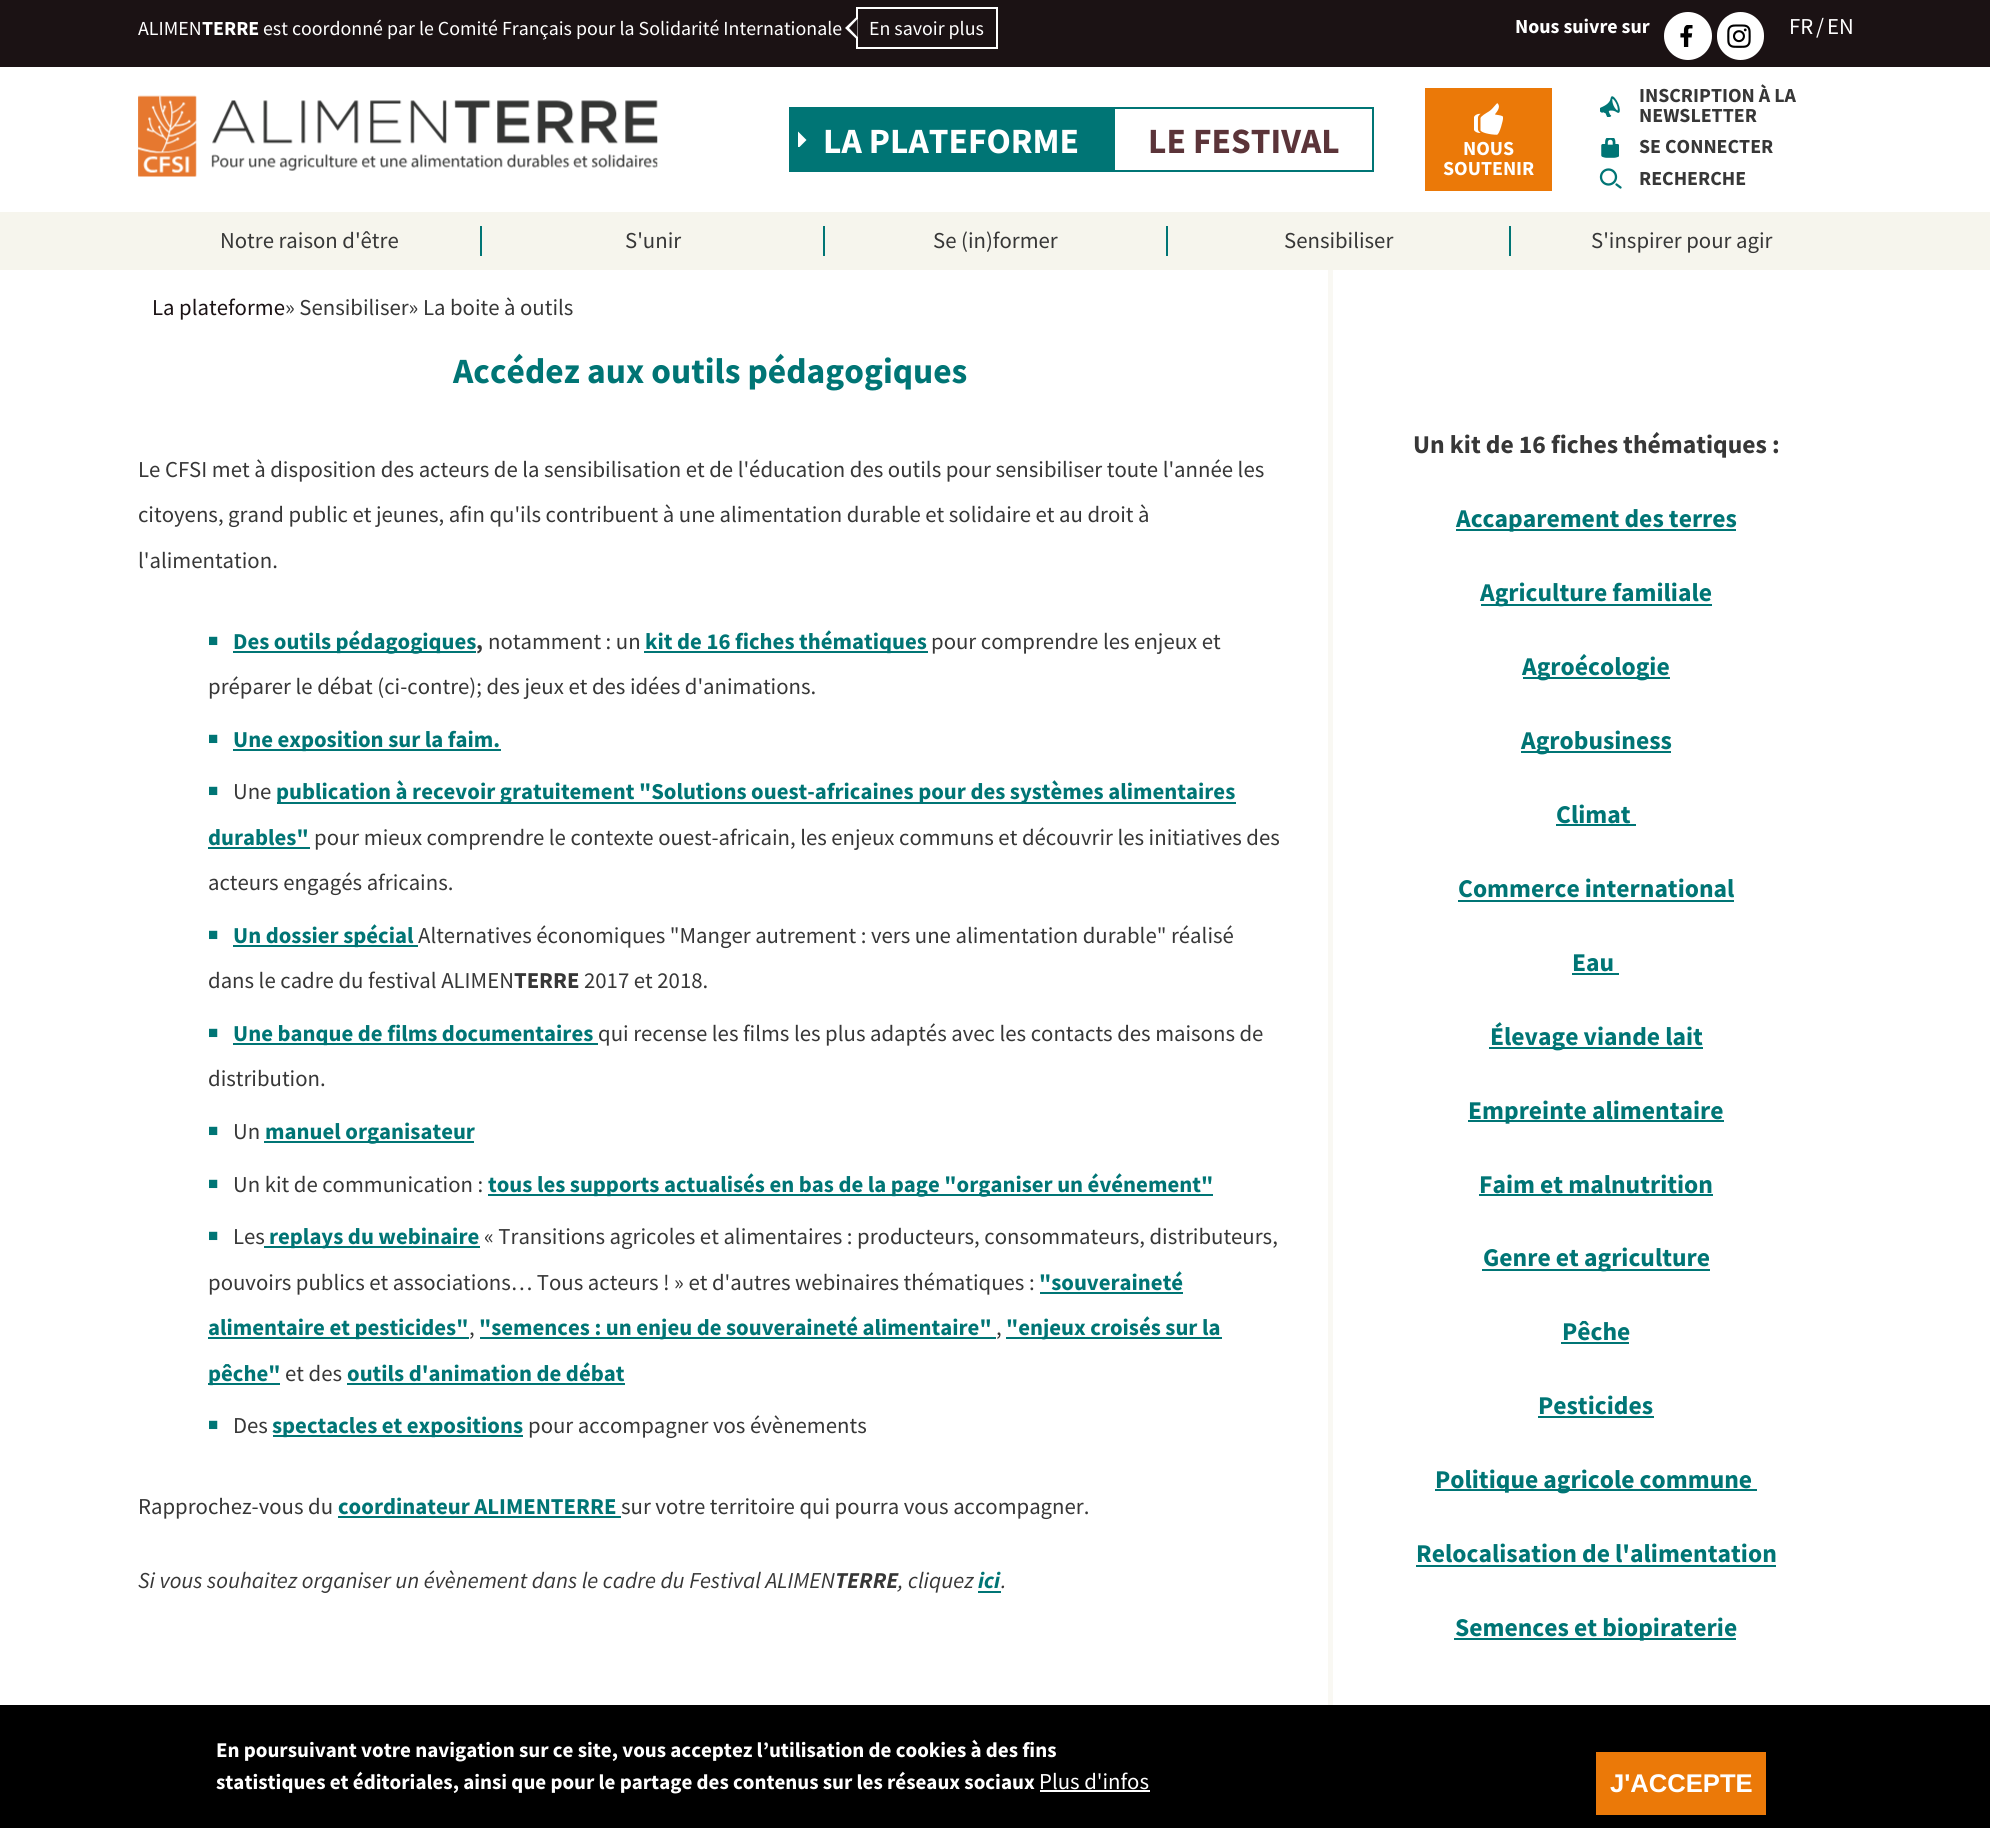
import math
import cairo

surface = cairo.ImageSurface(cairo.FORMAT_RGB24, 1990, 1828)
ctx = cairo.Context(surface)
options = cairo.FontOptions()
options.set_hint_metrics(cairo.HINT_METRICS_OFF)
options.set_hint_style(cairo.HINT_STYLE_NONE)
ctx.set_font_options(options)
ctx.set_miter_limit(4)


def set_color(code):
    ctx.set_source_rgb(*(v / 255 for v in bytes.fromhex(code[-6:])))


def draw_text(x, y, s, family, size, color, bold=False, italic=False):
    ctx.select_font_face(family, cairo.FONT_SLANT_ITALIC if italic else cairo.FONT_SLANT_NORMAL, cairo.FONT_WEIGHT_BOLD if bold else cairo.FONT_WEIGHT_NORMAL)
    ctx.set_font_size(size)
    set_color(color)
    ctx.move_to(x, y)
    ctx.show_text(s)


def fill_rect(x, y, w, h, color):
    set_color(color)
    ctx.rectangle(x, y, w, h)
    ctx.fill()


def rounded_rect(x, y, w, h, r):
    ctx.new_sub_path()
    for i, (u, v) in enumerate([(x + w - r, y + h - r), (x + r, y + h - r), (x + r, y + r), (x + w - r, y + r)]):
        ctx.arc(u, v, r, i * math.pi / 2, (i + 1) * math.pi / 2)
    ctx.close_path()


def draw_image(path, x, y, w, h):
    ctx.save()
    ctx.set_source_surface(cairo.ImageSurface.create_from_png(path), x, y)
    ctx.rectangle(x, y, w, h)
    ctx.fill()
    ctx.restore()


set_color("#ffffff")
ctx.paint()
fill_rect(0, 0, 1990, 67, "#1b1214")
draw_text(138, 35, "ALIMEN", "Source Sans Pro", 19.9, "#ffffff")
draw_text(202, 35, "TERRE", "Source Sans Pro", 19.9, "#ffffff", bold=True)
draw_text(263, 35, "est coordonné par le Comité Français pour la Solidarité Internationale", "Source Sans Pro", 19.9, "#ffffff")
ctx.rectangle(857, 8, 140, 40)
ctx.stroke()
ctx.new_path()
ctx.move_to(857.5, 16)
ctx.line_to(857.5, 40)
ctx.line_to(845, 28)
ctx.close_path()
ctx.fill()
set_color("#1b1214")
ctx.new_path()
ctx.move_to(857.5, 19)
ctx.line_to(857.5, 37)
ctx.line_to(849, 28)
ctx.close_path()
ctx.fill()
draw_text(869, 35, "En savoir plus", "Source Sans Pro", 19.9, "#ffffff")
draw_text(1515, 33, "Nous suivre sur", "Source Sans Pro", 19.9, "#ffffff", bold=True)
ctx.new_path()
ctx.arc(1688, 36, 24, 0, 2 * math.pi)
ctx.fill()
draw_image("assets/img1.png", 1680, 25, 13, 22)
rounded_rect(1717, 12, 47, 48, 23.5)
ctx.fill()
draw_image("assets/img2.png", 1727, 24, 24, 24)
draw_text(1789, 34, "FR", "Source Sans Pro", 22.75, "#ffffff")
draw_text(1816, 34, "/", "Source Sans Pro", 22.75, "#ffffff")
draw_text(1827, 34, "EN", "Source Sans Pro", 22.75, "#ffffff")
draw_image("assets/img3.png", 138, 95, 520, 82)
fill_rect(789, 107, 324, 65, "#007575")
ctx.save()
ctx.rectangle(798, 131, 9, 16)
ctx.clip()
set_color("#ffffff")
ctx.set_fill_rule(cairo.FILL_RULE_EVEN_ODD)
ctx.new_path()
ctx.move_to(798, 148.5)
ctx.line_to(798, 131.5)
ctx.line_to(806.5, 140)
ctx.close_path()
ctx.fill()
ctx.restore()
draw_text(823, 153, "LA PLATEFORME", "Source Sans Pro", 35.5, "#ffffff", bold=True)
ctx.rectangle(1114, 108, 259, 63)
set_color("#007575")
ctx.stroke()
draw_text(1148, 153, "LE FESTIVAL", "Source Sans Pro", 35.5, "#5b3439", bold=True)
fill_rect(1425, 88, 127, 103, "#eb7908")
draw_image("assets/img4.png", 1474, 103, 29, 32)
draw_text(1463, 155, "NOUS", "Source Sans Pro", 19.9, "#ffffff", bold=True)
draw_text(1443, 175, "SOUTENIR", "Source Sans Pro", 19.9, "#ffffff", bold=True)
draw_text(1639, 102, "INSCRIPTION À LA", "Source Sans Pro", 19.9, "#373737", bold=True)
draw_image("assets/img5.png", 1600, 96, 20, 21)
draw_text(1639, 122, "NEWSLETTER", "Source Sans Pro", 19.9, "#373737", bold=True)
draw_image("assets/img6.png", 1601, 138, 18, 20)
draw_text(1639, 153, "SE CONNECTER", "Source Sans Pro", 19.9, "#373737", bold=True)
ctx.new_path()
ctx.arc(1608.5, 177, 7.5, 0, 2 * math.pi)
set_color("#007575")
ctx.set_line_width(2.3)
ctx.stroke()
ctx.new_path()
ctx.move_to(1620.5, 187.5)
ctx.line_to(1616.5, 184.5)
ctx.set_line_cap(cairo.LINE_CAP_ROUND)
ctx.set_line_join(cairo.LINE_JOIN_ROUND)
ctx.stroke()
draw_text(1639, 185, "RECHERCHE", "Source Sans Pro", 19.9, "#373737", bold=True)
fill_rect(1328, 264, 5, 1441, "#f9f8f3")
fill_rect(0, 212, 1990, 58, "#f6f5ed")
draw_text(220, 248, "Notre raison d'être", "Source Sans Pro", 22.75, "#373737")
fill_rect(480, 226, 2, 30, "#007575")
draw_text(625, 248, "S'unir", "Source Sans Pro", 22.75, "#373737")
fill_rect(823, 226, 2, 30, "#007575")
draw_text(933, 248, "Se (in)former", "Source Sans Pro", 22.75, "#373737")
fill_rect(1166, 226, 2, 30, "#007575")
draw_text(1284, 248, "Sensibiliser", "Source Sans Pro", 22.75, "#373737")
fill_rect(1509, 226, 2, 30, "#007575")
draw_text(1591, 248, "S'inspirer pour agir", "Source Sans Pro", 22.75, "#373737")
draw_text(152, 315, "La plateforme", "Source Sans Pro", 22.75, "#1b1214")
draw_text(285, 315, "» Sensibiliser» La boite à outils", "Source Sans Pro", 22.75, "#373737")
draw_text(453, 383, "Accédez aux outils pédagogiques", "Source Sans Pro", 35.5, "#007575", bold=True)
draw_text(138, 477, "Le CFSI met à disposition des acteurs de la sensibilisation et de l'éducation des outils pour sensibiliser toute l'année les", "Source Sans Pro", 22.75, "#373737")
draw_text(138, 522, "citoyens, grand public et jeunes, afin qu'ils contribuent à une alimentation durable et solidaire et au droit à", "Source Sans Pro", 22.75, "#373737")
draw_text(138, 568, "l'alimentation.", "Source Sans Pro", 22.75, "#373737")
draw_text(208, 646, "■", "Liberation Sans", 17, "#007575", bold=True)
fill_rect(233, 651, 243, 2, "#007575")
draw_text(233, 649, "Des outils pédagogiques", "Source Sans Pro", 22.75, "#007575", bold=True)
draw_text(488, 649, "notamment : un", "Source Sans Pro", 22.75, "#373737")
fill_rect(644, 651, 284, 2, "#007575")
draw_text(645, 649, "kit de 16 fiches thématiques", "Source Sans Pro", 22.75, "#007575", bold=True)
draw_text(931, 649, "pour comprendre les enjeux et", "Source Sans Pro", 22.75, "#373737")
draw_text(476, 649, ",", "Source Sans Pro", 22.75, "#373737", bold=True)
draw_text(208, 694, "préparer le débat (ci-contre); des jeux et des idées d'animations.", "Source Sans Pro", 22.75, "#373737")
draw_text(208, 744, "■", "Liberation Sans", 17, "#007575", bold=True)
fill_rect(233, 749, 268, 2, "#007575")
draw_text(233, 747, "Une exposition sur la faim.", "Source Sans Pro", 22.75, "#007575", bold=True)
draw_text(208, 796, "■", "Liberation Sans", 17, "#007575", bold=True)
draw_text(233, 799, "Une", "Source Sans Pro", 22.75, "#373737")
fill_rect(277, 802, 959, 2, "#007575")
draw_text(276, 799, "publication à recevoir gratuitement \"Solutions ouest-africaines pour des systèmes alimentaires", "Source Sans Pro", 22.75, "#007575", bold=True)
draw_text(208, 845, "durables\"", "Source Sans Pro", 22.75, "#007575", bold=True)
fill_rect(208, 847, 102, 2, "#007575")
draw_text(314, 845, "pour mieux comprendre le contexte ouest-africain, les enjeux communs et découvrir les initiatives des", "Source Sans Pro", 22.75, "#373737")
draw_text(208, 890, "acteurs engagés africains.", "Source Sans Pro", 22.75, "#373737")
draw_text(208, 940, "■", "Liberation Sans", 17, "#007575", bold=True)
fill_rect(233, 945, 180, 2, "#007575")
draw_text(233, 943, "Un dossier spécial", "Source Sans Pro", 22.75, "#007575", bold=True)
fill_rect(413, 945, 5, 2, "#007575")
draw_text(418, 943, "Alternatives économiques \"Manger autrement : vers une alimentation durable\" réalisé", "Source Sans Pro", 22.75, "#373737")
draw_text(208, 988, "dans le cadre du festival ALIMEN", "Source Sans Pro", 22.75, "#373737")
draw_text(514, 988, "TERRE", "Source Sans Pro", 22.75, "#373737", bold=True)
draw_text(584, 988, "2017 et 2018.", "Source Sans Pro", 22.75, "#373737")
draw_text(208, 1038, "■", "Liberation Sans", 17, "#007575", bold=True)
fill_rect(233, 1043, 365, 2, "#007575")
draw_text(233, 1041, "Une banque de films documentaires", "Source Sans Pro", 22.75, "#007575", bold=True)
draw_text(598, 1041, "qui recense les films les plus adaptés avec les contacts des maisons de", "Source Sans Pro", 22.75, "#373737")
draw_text(208, 1086, "distribution.", "Source Sans Pro", 22.75, "#373737")
draw_text(208, 1136, "■", "Liberation Sans", 17, "#007575", bold=True)
draw_text(233, 1139, "Un", "Source Sans Pro", 22.75, "#373737")
fill_rect(264, 1141, 210, 2, "#007575")
draw_text(265, 1139, "manuel organisateur", "Source Sans Pro", 22.75, "#007575", bold=True)
draw_text(208, 1189, "■", "Liberation Sans", 17, "#007575", bold=True)
draw_text(233, 1192, "Un kit de communication :", "Source Sans Pro", 22.75, "#373737")
fill_rect(488, 1194, 725, 2, "#007575")
draw_text(488, 1192, "tous les supports actualisés en bas de la page \"organiser un événement\"", "Source Sans Pro", 22.75, "#007575", bold=True)
draw_text(208, 1241, "■", "Liberation Sans", 17, "#007575", bold=True)
draw_text(233, 1244, "Les", "Source Sans Pro", 22.75, "#373737")
fill_rect(264, 1246, 216, 2, "#007575")
draw_text(269, 1244, "replays du webinaire", "Source Sans Pro", 22.75, "#007575", bold=True)
draw_text(484, 1244, "« Transitions agricoles et alimentaires : producteurs, consommateurs, distributeurs,", "Source Sans Pro", 22.75, "#373737")
draw_text(208, 1290, "pouvoirs publics et associations… Tous acteurs ! » et d'autres webinaires thématiques :", "Source Sans Pro", 22.75, "#373737")
draw_text(1039, 1290, "\"souveraineté", "Source Sans Pro", 22.75, "#007575", bold=True)
fill_rect(1040, 1292, 143, 2, "#007575")
fill_rect(208, 1337, 261, 2, "#007575")
draw_text(208, 1335, "alimentaire et pesticides\"", "Source Sans Pro", 22.75, "#007575", bold=True)
draw_text(469, 1335, ",", "Source Sans Pro", 22.75, "#373737")
fill_rect(480, 1337, 516, 2, "#007575")
draw_text(479, 1335, "\"semences : un enjeu de souveraineté alimentaire\"", "Source Sans Pro", 22.75, "#007575", bold=True)
draw_text(996, 1335, ",", "Source Sans Pro", 22.75, "#373737")
fill_rect(1006, 1337, 216, 2, "#007575")
draw_text(1006, 1335, "\"enjeux croisés sur la", "Source Sans Pro", 22.75, "#007575", bold=True)
fill_rect(208, 1383, 72, 2, "#007575")
draw_text(208, 1381, "pêche\"", "Source Sans Pro", 22.75, "#007575", bold=True)
draw_text(285, 1381, "et des", "Source Sans Pro", 22.75, "#373737")
draw_text(347, 1381, "outils d'animation de débat", "Source Sans Pro", 22.75, "#007575", bold=True)
fill_rect(347, 1383, 278, 2, "#007575")
draw_text(208, 1430, "■", "Liberation Sans", 17, "#007575", bold=True)
draw_text(233, 1433, "Des", "Source Sans Pro", 22.75, "#373737")
fill_rect(273, 1435, 250, 2, "#007575")
draw_text(272, 1433, "spectacles et expositions", "Source Sans Pro", 22.75, "#007575", bold=True)
draw_text(528, 1433, "pour accompagner vos évènements", "Source Sans Pro", 22.75, "#373737")
draw_text(138, 1514, "Rapprochez-vous du", "Source Sans Pro", 22.75, "#373737")
draw_text(338, 1514, "coordinateur ALIMENTERRE", "Source Sans Pro", 22.75, "#007575", bold=True)
fill_rect(338, 1516, 283, 2, "#007575")
draw_text(621, 1514, "sur votre territoire qui pourra vous accompagner.", "Source Sans Pro", 22.75, "#373737")
draw_text(138, 1588, "Si vous souhaitez organiser un évènement dans le cadre du Festival ALIMEN", "Source Sans Pro", 22.75, "#373737", italic=True)
draw_text(835, 1588, "TERRE", "Source Sans Pro", 22.75, "#373737", bold=True, italic=True)
draw_text(898, 1588, ", cliquez", "Source Sans Pro", 22.75, "#373737", italic=True)
draw_text(978, 1588, "ici", "Source Sans Pro", 22.75, "#007575", bold=True, italic=True)
fill_rect(978, 1591, 23, 2, "#007575")
draw_text(1001, 1588, ".", "Source Sans Pro", 22.75, "#373737", italic=True)
draw_text(1413, 453, "Un kit de 16 fiches thématiques :", "Source Sans Pro", 25.6, "#373737", bold=True)
fill_rect(1456, 529, 280, 2, "#007575")
draw_text(1456, 527, "Accaparement des terres", "Source Sans Pro", 25.6, "#007575", bold=True)
fill_rect(1481, 604, 231, 2, "#007575")
draw_text(1480, 601, "Agriculture familiale", "Source Sans Pro", 25.6, "#007575", bold=True)
fill_rect(1523, 677, 147, 2, "#007575")
draw_text(1522, 675, "Agroécologie", "Source Sans Pro", 25.6, "#007575", bold=True)
fill_rect(1521, 751, 150, 2, "#007575")
draw_text(1521, 749, "Agrobusiness", "Source Sans Pro", 25.6, "#007575", bold=True)
draw_text(1556, 823, "Climat", "Source Sans Pro", 25.6, "#007575", bold=True)
fill_rect(1556, 824, 80, 2, "#007575")
draw_text(1458, 897, "Commerce international", "Source Sans Pro", 25.6, "#007575", bold=True)
fill_rect(1458, 900, 276, 2, "#007575")
draw_text(1572, 971, "Eau", "Source Sans Pro", 25.6, "#007575", bold=True)
fill_rect(1572, 973, 47, 2, "#007575")
fill_rect(1489, 1047, 214, 2, "#007575")
draw_text(1490, 1045, "Élevage viande lait", "Source Sans Pro", 25.6, "#007575", bold=True)
fill_rect(1468, 1120, 256, 2, "#007575")
draw_text(1468, 1119, "Empreinte alimentaire", "Source Sans Pro", 25.6, "#007575", bold=True)
draw_text(1479, 1193, "Faim et malnutrition", "Source Sans Pro", 25.6, "#007575", bold=True)
fill_rect(1479, 1194, 234, 2, "#007575")
fill_rect(1482, 1269, 228, 2, "#007575")
draw_text(1483, 1266, "Genre et agriculture", "Source Sans Pro", 25.6, "#007575", bold=True)
draw_text(1562, 1340, "Pêche", "Source Sans Pro", 25.6, "#007575", bold=True)
fill_rect(1561, 1342, 68, 2, "#007575")
draw_text(1538, 1414, "Pesticides", "Source Sans Pro", 25.6, "#007575", bold=True)
fill_rect(1538, 1416, 116, 2, "#007575")
fill_rect(1435, 1489, 322, 2, "#007575")
draw_text(1435, 1488, "Politique agricole commune", "Source Sans Pro", 25.6, "#007575", bold=True)
draw_text(1416, 1562, "Relocalisation de l'alimentation", "Source Sans Pro", 25.6, "#007575", bold=True)
fill_rect(1416, 1565, 360, 2, "#007575")
fill_rect(1454, 1638, 282, 2, "#007575")
draw_text(1455, 1636, "Semences et biopiraterie", "Source Sans Pro", 25.6, "#007575", bold=True)
fill_rect(0, 1705, 1990, 123, "#000000")
draw_text(216, 1757, "En poursuivant votre navigation sur ce site, vous acceptez l’utilisation de cookies à des fins", "Source Sans Pro", 21, "#ffffff", bold=True)
draw_text(216, 1789, "statistiques et éditoriales, ainsi que pour le partage des contenus sur les réseaux sociaux", "Source Sans Pro", 21, "#ffffff", bold=True)
draw_text(1039, 1789, "Plus d'infos", "Source Sans Pro", 22.75, "#ffffff")
fill_rect(1040, 1790, 110, 2, "#ffffff")
fill_rect(1596, 1752, 170, 63, "#eb7908")
draw_text(1610, 1792, "J'ACCEPTE", "Liberation Sans", 25.6, "#ffffff", bold=True)
surface.write_to_png("output.png")
